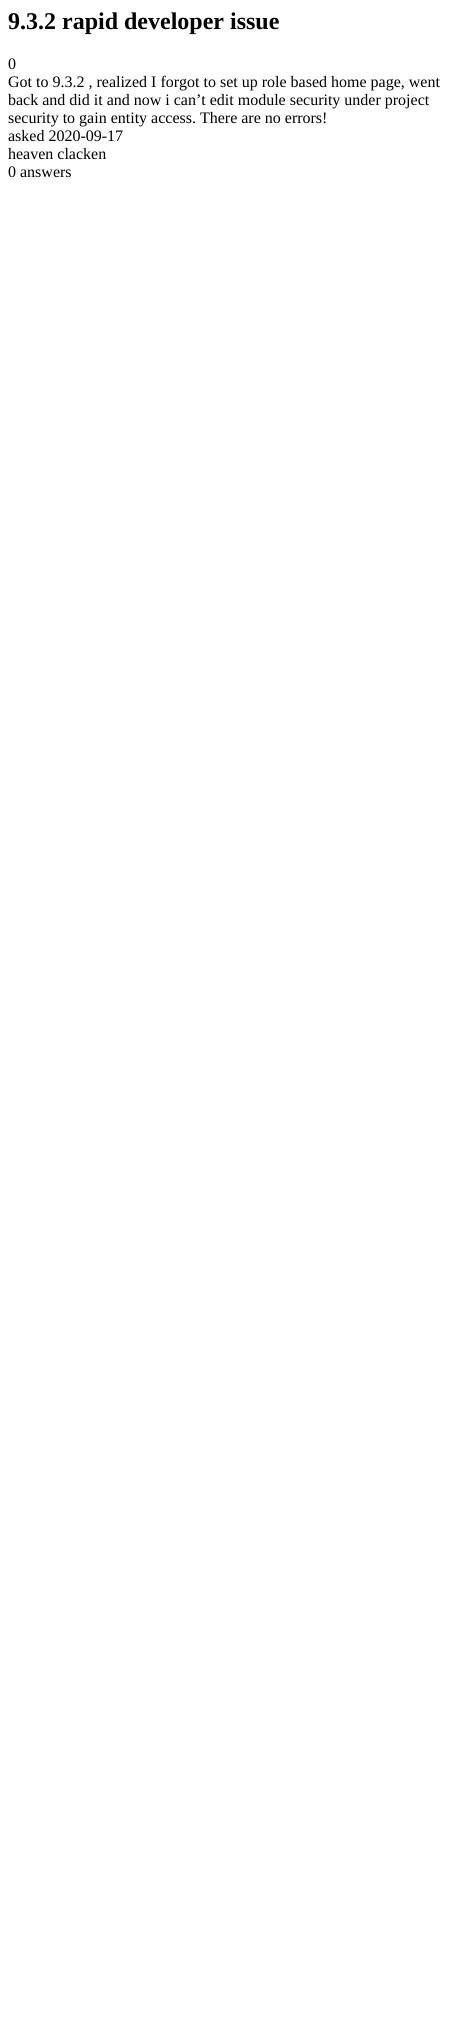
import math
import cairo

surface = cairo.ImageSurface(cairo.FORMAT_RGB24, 466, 2044)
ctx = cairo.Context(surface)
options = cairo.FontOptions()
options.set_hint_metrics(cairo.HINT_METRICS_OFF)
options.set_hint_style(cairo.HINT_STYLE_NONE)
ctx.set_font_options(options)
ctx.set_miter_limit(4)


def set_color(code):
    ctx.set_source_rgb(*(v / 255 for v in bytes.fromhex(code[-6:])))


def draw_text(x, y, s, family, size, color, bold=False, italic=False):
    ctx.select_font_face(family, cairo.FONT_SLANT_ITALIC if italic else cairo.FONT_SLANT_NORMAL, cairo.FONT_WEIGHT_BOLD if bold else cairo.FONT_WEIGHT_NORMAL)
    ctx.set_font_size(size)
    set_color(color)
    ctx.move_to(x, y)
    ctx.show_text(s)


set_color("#ffffff")
ctx.paint()
draw_text(8, 29, "9.3.2 rapid developer issue", "Liberation Serif", 24, "#000000", bold=True)
draw_text(8, 69, "0", "Liberation Serif", 16, "#000000")
draw_text(8, 87, "Got to 9.3.2 , realized I forgot to set up role based home page, went", "Liberation Serif", 16, "#000000")
draw_text(8, 105, "back and did it and now i can’t edit module security under project", "Liberation Serif", 16, "#000000")
draw_text(8, 123, "security to gain entity access. There are no errors!", "Liberation Serif", 16, "#000000")
draw_text(8, 141, "asked 2020-09-17", "Liberation Serif", 16, "#000000")
draw_text(8, 159, "heaven clacken", "Liberation Serif", 16, "#000000")
draw_text(8, 177, "0 answers", "Liberation Serif", 16, "#000000")
surface.write_to_png("output.png")
